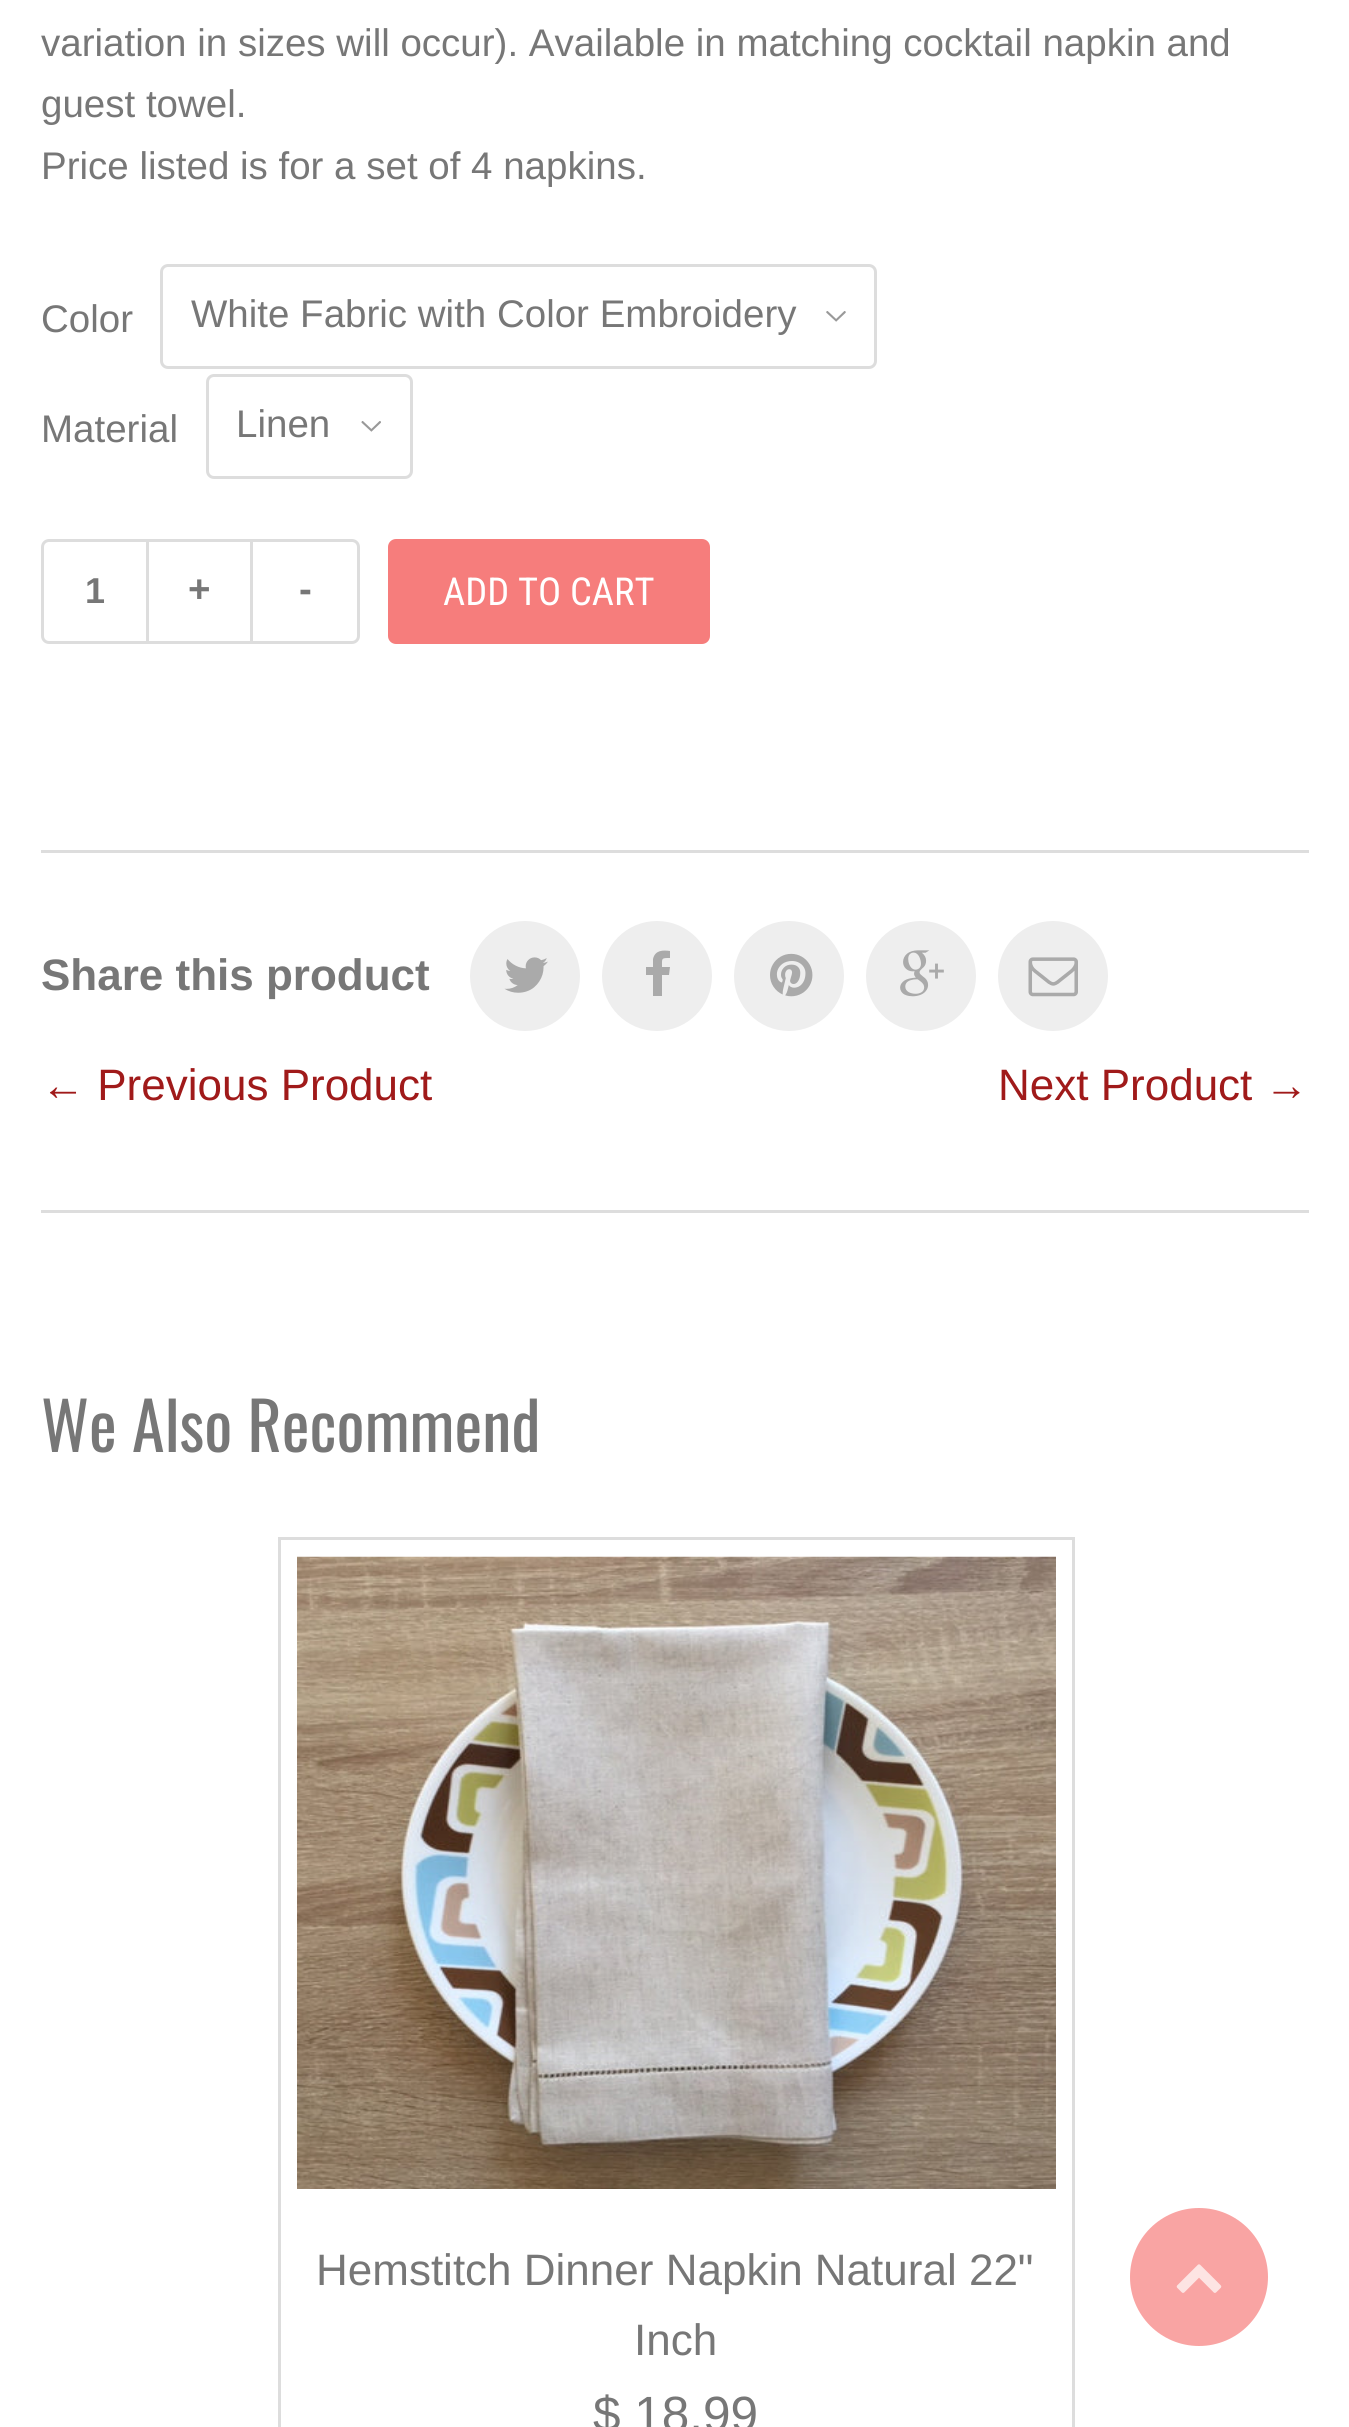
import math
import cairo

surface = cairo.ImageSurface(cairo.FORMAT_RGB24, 1349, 2427)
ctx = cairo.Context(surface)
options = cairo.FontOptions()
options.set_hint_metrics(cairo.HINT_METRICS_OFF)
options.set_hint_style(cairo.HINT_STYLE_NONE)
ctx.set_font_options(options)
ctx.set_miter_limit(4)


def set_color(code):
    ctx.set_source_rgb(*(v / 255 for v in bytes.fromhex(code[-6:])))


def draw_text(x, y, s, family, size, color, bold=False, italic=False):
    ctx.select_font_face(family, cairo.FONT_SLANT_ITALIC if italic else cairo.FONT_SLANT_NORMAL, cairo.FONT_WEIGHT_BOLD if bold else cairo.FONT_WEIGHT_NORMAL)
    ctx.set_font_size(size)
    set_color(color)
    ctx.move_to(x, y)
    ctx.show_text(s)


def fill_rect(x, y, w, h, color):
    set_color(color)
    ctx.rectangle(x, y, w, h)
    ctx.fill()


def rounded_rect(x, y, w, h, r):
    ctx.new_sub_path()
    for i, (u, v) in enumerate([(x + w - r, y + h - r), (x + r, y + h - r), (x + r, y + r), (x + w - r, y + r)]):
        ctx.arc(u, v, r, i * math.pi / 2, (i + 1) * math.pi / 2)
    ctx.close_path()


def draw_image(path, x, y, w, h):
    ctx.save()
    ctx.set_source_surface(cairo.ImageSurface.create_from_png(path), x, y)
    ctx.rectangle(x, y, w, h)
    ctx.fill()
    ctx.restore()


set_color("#ffffff")
ctx.paint()
draw_text(41, 56, "variation in sizes will occur). Available in matching cocktail napkin and", "Liberation Sans", 38.5, "#777777")
draw_text(41, 117, "guest towel.", "Liberation Sans", 38.5, "#777777")
draw_text(41, 179, "Price listed is for a set of 4 napkins.", "Liberation Sans", 38.5, "#777777")
draw_text(41, 332, "Color", "Liberation Sans", 38.5, "#777777")
draw_image("assets/img1.png", 826, 311, 20, 11)
rounded_rect(161.5, 265.5, 714, 102, 6.5)
set_color("#dddddd")
ctx.set_line_width(3)
ctx.stroke()
draw_text(191, 327, "White Fabric with Color Embroidery", "Liberation Sans", 38.5, "#777777")
draw_text(41, 442, "Material", "Liberation Sans", 38.5, "#777777")
draw_image("assets/img2.png", 361, 421, 20, 11)
rounded_rect(207.5, 375.5, 204, 102, 6.5)
set_color("#dddddd")
ctx.stroke()
draw_text(236, 437, "Linen", "Liberation Sans", 38.5, "#777777")
rounded_rect(42.5, 540.5, 316, 102, 6.5)
set_color("#dddddd")
ctx.stroke()
fill_rect(146, 542, 3, 99, "#dddddd")
draw_text(85, 603, "1", "Liberation Sans", 36, "#777777", bold=True)
fill_rect(250, 542, 3, 99, "#dddddd")
draw_text(188, 602, "+", "Liberation Sans", 38.5, "#777777", bold=True)
draw_text(299, 602, "-", "Liberation Sans", 38.5, "#777777", bold=True)
set_color("#f67d7c")
rounded_rect(388, 539, 322, 105, 8)
ctx.fill()
draw_text(443, 605, "ADD TO CART", "Roboto Condensed", 38.5, "#ffffff")
fill_rect(41, 850, 1268, 3, "#dddddd")
fill_rect(41, 1210, 1268, 3, "#dddddd")
draw_text(41, 990, "Share this product", "Liberation Sans", 44, "#777777", bold=True)
set_color("#eeeeee")
ctx.new_path()
ctx.arc(525, 976, 55, 0, 2 * math.pi)
ctx.fill()
draw_image("assets/img3.png", 504, 957, 44, 36)
ctx.arc(657, 976, 55, 0, 2 * math.pi)
ctx.fill()
set_color("#aaaaaa")
ctx.new_path()
ctx.move_to(646, 975)
ctx.line_to(646, 967)
ctx.line_to(653, 967)
ctx.line_to(653, 959)
ctx.curve_to(655, 950, 663, 950, 670, 951)
ctx.line_to(670, 958)
ctx.curve_to(661, 958, 662, 958, 662, 967)
ctx.line_to(670, 967)
ctx.line_to(669, 975)
ctx.line_to(662, 975)
ctx.line_to(662, 996)
ctx.line_to(653, 996)
ctx.line_to(653, 975)
ctx.close_path()
ctx.fill()
set_color("#eeeeee")
ctx.arc(789, 976, 55, 0, 2 * math.pi)
ctx.fill()
draw_image("assets/img4.png", 770, 953, 43, 44)
ctx.arc(921, 976, 55, 0, 2 * math.pi)
ctx.fill()
draw_image("assets/img5.png", 900, 950, 44, 47)
ctx.arc(1053, 976, 55, 0, 2 * math.pi)
ctx.fill()
draw_image("assets/img6.png", 1028, 957, 50, 40)
draw_text(41, 1100, "← Previous Product", "Liberation Sans", 44, "#a01a1a")
draw_text(998, 1100, "Next Product →", "Liberation Sans", 44, "#a01a1a")
draw_text(41, 1452, "We Also Recommend", "Oswald", 66, "#777777")
ctx.rectangle(279.5, 1538.5, 794, 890)
set_color("#dddddd")
ctx.stroke()
draw_image("assets/img7.png", 297, 1556, 759, 633)
draw_text(316, 2285, "Hemstitch Dinner Napkin Natural 22\"", "Liberation Sans", 44, "#777777")
draw_text(634, 2355, "Inch", "Liberation Sans", 44, "#777777")
draw_text(593, 2431, "$ 18.99", "Liberation Sans", 49.5, "#777777")
set_color("#f9a4a3")
ctx.new_path()
ctx.arc(1199, 2277, 69, 0, 2 * math.pi)
ctx.fill()
draw_image("assets/img8.png", 1176, 2264, 46, 29)
surface.write_to_png("output.png")
